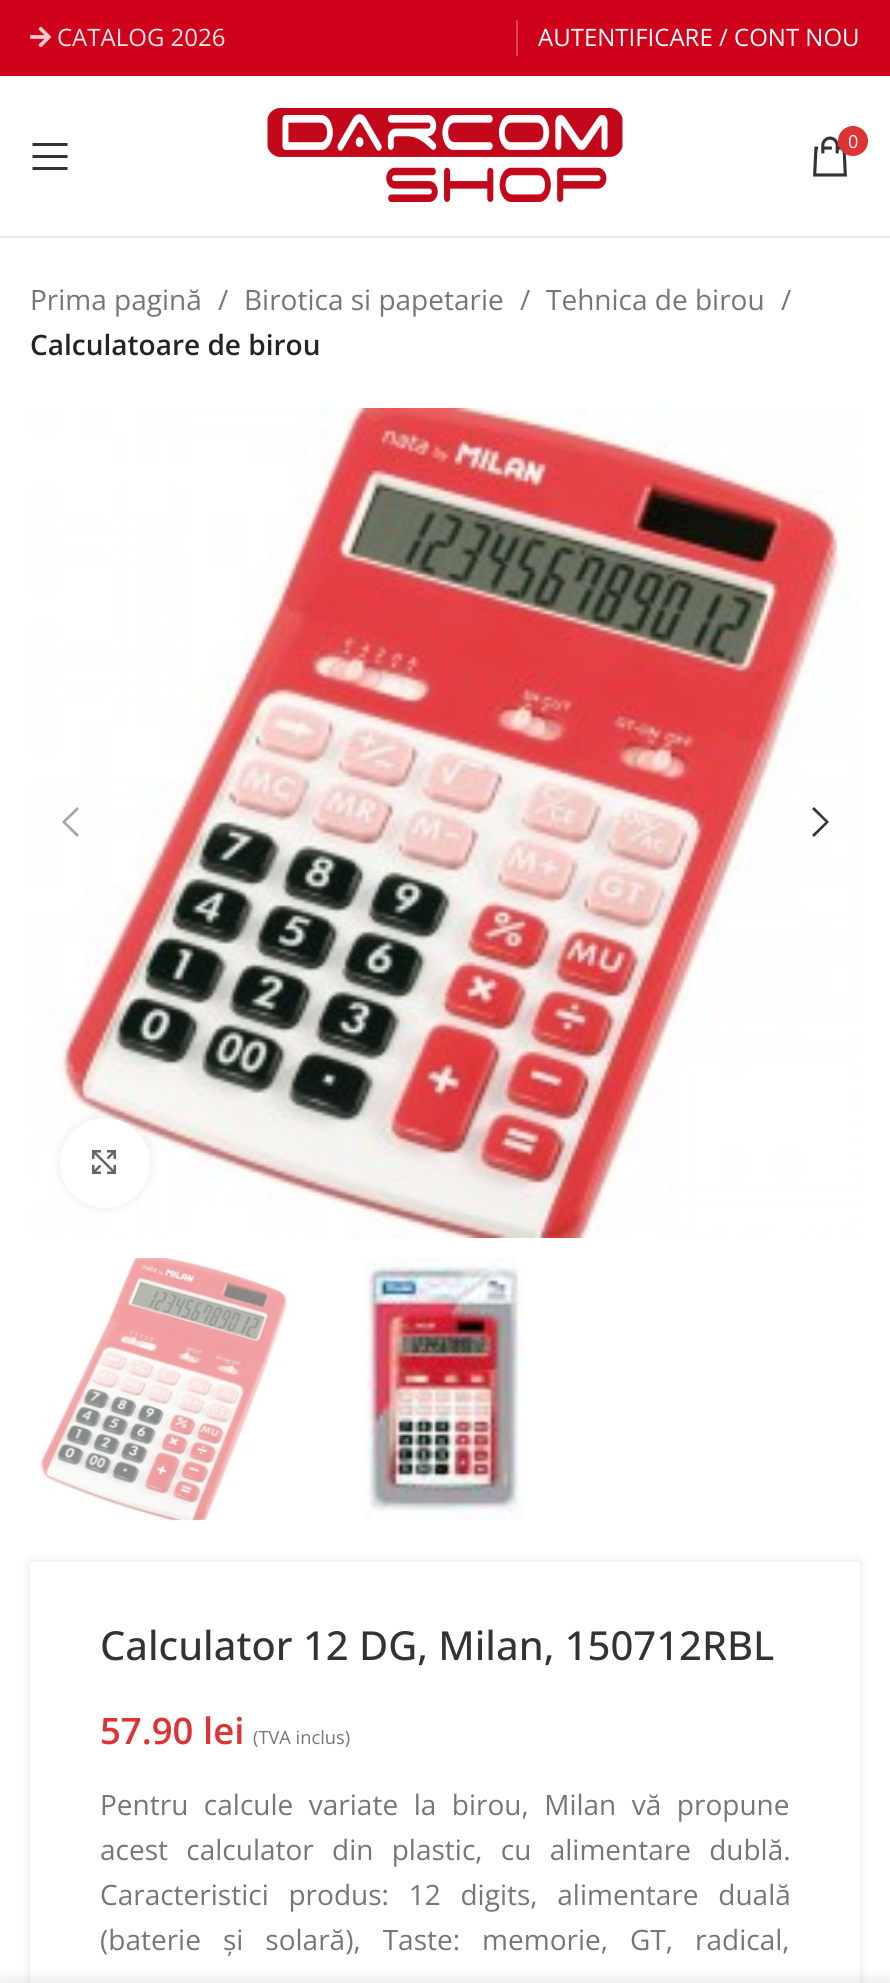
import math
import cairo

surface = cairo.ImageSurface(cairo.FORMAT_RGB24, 890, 1983)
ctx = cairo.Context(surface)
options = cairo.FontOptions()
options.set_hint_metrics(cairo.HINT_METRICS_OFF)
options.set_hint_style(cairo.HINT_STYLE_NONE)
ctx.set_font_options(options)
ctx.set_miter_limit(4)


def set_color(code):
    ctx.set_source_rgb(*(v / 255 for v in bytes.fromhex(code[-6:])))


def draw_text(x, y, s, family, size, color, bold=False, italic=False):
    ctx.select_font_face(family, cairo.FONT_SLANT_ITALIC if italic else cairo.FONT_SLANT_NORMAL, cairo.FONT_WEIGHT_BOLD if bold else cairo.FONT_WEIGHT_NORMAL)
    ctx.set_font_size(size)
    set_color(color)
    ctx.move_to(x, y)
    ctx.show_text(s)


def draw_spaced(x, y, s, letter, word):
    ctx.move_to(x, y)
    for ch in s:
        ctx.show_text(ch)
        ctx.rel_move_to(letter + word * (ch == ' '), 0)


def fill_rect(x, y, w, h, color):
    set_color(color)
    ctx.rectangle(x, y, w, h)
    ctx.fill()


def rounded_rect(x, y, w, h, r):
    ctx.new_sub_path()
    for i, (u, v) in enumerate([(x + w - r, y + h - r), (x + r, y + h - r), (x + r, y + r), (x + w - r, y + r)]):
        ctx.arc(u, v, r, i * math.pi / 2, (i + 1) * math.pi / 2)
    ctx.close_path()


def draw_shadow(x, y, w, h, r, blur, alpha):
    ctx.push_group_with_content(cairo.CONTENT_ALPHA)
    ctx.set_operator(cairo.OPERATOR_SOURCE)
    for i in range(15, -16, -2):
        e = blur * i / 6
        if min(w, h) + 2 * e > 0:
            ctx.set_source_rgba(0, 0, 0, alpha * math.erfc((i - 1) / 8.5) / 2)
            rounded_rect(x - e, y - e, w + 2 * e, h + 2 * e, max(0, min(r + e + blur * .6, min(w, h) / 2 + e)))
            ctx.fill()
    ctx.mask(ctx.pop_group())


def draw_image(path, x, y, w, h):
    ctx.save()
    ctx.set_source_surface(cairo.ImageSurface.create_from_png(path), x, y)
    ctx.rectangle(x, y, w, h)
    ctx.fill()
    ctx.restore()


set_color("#ffffff")
ctx.paint()
fill_rect(0, 0, 890, 76, "#d0021b")
draw_image("assets/img1.png", 30, 26, 21, 22)
draw_text(57, 46, "CATALOG 2026", "Open Sans", 24, "#fae6e8")
fill_rect(516, 20, 2, 36, "#dc4154")
draw_text(538, 46, "AUTENTIFICARE / CONT NOU", "Open Sans", 24, "#ffffff")
fill_rect(0, 236, 890, 2, "#e8e8e8")
draw_image("assets/img2.png", 267, 108, 356, 94)
draw_image("assets/img3.png", 813, 136, 34, 41)
set_color("#dd3333")
ctx.arc(853, 141, 15, 0, 2 * math.pi)
ctx.fill()
draw_text(848, 148, "0", "Open Sans", 18, "#ffffff")
set_color("#333333")
ctx.new_path()
ctx.move_to(32.5, 146)
ctx.line_to(67.5, 146)
ctx.line_to(67.5, 143)
ctx.line_to(32.5, 143)
ctx.close_path()
ctx.move_to(32.5, 158)
ctx.line_to(67.5, 158)
ctx.line_to(67.5, 155)
ctx.line_to(32.5, 155)
ctx.close_path()
ctx.move_to(32.5, 170)
ctx.line_to(67.5, 170)
ctx.line_to(67.5, 167)
ctx.line_to(32.5, 167)
ctx.close_path()
ctx.fill()
draw_text(30, 310, "Prima pagină", "Open Sans", 28, "#767676")
draw_text(218, 310, "/", "Open Sans", 28, "#767676")
draw_text(244, 310, "Birotica si papetarie", "Open Sans", 28, "#767676")
draw_text(520, 310, "/", "Open Sans", 28, "#767676")
draw_text(546, 310, "Tehnica de birou", "Open Sans", 28, "#767676")
draw_text(781, 310, "/", "Open Sans", 28, "#767676")
draw_text(30, 355, "Calculatoare de birou", "Open Sans SemiBold", 28, "#242424")
draw_image("assets/img4.png", 30, 408, 830, 830)
set_color("#a5a5a5")
ctx.new_path()
ctx.move_to(79, 809)
ctx.line_to(77, 807)
ctx.line_to(62, 822)
ctx.line_to(77, 837)
ctx.line_to(79, 835)
ctx.line_to(65.5, 822)
ctx.close_path()
ctx.fill()
set_color("#333333")
ctx.new_path()
ctx.move_to(812, 809)
ctx.line_to(825.5, 822)
ctx.line_to(812, 835)
ctx.line_to(814, 837)
ctx.line_to(829, 822)
ctx.line_to(814, 807)
ctx.close_path()
ctx.fill()
set_color("#000000")
draw_shadow(60, 1118, 90, 90, 45, 5, 0.08)
set_color("#ffffff")
ctx.arc(105, 1163, 45, 0, 2 * math.pi)
ctx.fill()
draw_image("assets/img5.png", 92, 1150, 24, 24)
draw_image("assets/img6.png", 40, 1258, 254, 263)
draw_image("assets/img7.png", 365, 1258, 160, 262)
ctx.save()
ctx.set_fill_rule(cairo.FILL_RULE_EVEN_ODD)
ctx.new_path()
ctx.move_to(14, 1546)
ctx.line_to(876, 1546)
ctx.line_to(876, 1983)
ctx.line_to(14, 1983)
ctx.close_path()
ctx.move_to(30, 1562)
ctx.line_to(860, 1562)
ctx.line_to(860, 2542)
ctx.line_to(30, 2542)
ctx.close_path()
ctx.clip()
set_color("#000000")
draw_shadow(30, 1562, 830, 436, 0, 5, 0.1)
ctx.restore()
draw_text(100, 1660, "Calculator 12 DG, Milan, 150712RBL", "Open Sans Medium", 40, "#333333")
draw_text(100, 1744, "57.90 lei", "Open Sans SemiBold", 36.5, "#dd3333")
draw_text(253, 1744, "(TVA inclus)", "Open Sans", 18.25, "#767676")
ctx.set_font_size(28)
draw_spaced(100, 1815, "Pentru calcule variate la birou, Milan vă propune", 0, 8.25)
draw_spaced(100, 1860, "acest calculator din plastic, cu alimentare dublă.", 0, 11)
draw_spaced(100, 1905, "Caracteristici produs: 12 digits, alimentare duală", 0, 12.5)
draw_spaced(100, 1950, "(baterie și solară), Taste: memorie, GT, radical,", 0, 14.75)
set_color("#000000")
draw_shadow(0, 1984, 890, 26, 0, 9, 0.14)
surface.write_to_png("output.png")
